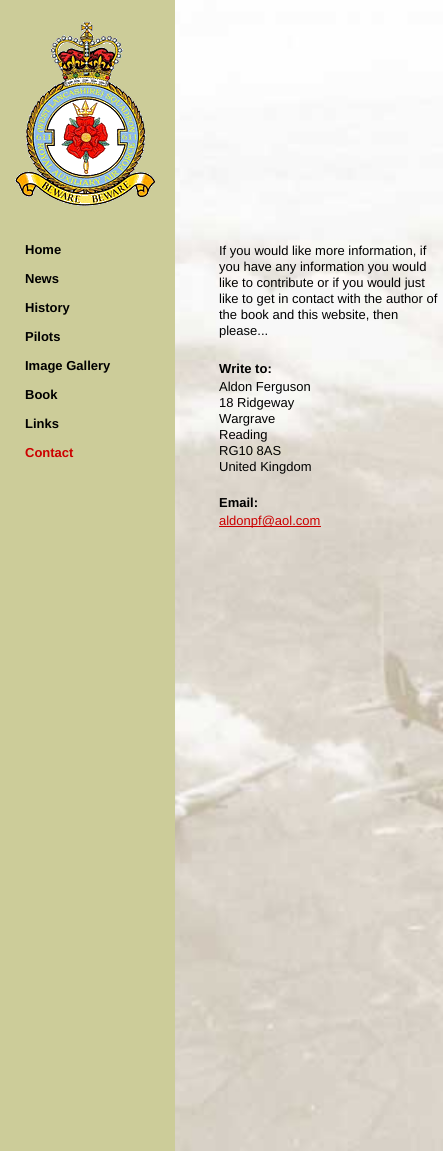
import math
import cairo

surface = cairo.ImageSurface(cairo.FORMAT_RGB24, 443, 1151)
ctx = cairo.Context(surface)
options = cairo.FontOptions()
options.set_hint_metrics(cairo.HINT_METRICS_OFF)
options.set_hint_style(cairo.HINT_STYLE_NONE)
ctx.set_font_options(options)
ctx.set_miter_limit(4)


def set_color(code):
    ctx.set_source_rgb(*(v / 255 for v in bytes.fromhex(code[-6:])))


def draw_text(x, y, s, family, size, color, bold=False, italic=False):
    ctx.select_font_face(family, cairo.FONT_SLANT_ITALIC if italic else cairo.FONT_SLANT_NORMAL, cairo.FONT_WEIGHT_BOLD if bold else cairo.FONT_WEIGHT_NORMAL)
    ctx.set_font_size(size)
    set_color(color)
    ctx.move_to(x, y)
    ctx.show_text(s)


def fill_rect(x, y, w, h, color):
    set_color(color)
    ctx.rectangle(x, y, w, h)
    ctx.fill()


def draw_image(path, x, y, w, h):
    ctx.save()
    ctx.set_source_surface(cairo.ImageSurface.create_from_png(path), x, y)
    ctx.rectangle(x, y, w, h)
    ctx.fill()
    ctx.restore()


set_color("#ffffff")
ctx.paint()
draw_image("assets/img1.png", 175, 0, 268, 1151)
fill_rect(0, 0, 175, 1151, "#cccc99")
draw_image("assets/img2.png", 15, 22, 140, 184)
draw_text(25, 254, "Home", "Liberation Sans", 13, "#000000", bold=True)
draw_text(25, 283, "News", "Liberation Sans", 13, "#000000", bold=True)
draw_text(25, 312, "History", "Liberation Sans", 13, "#000000", bold=True)
draw_text(25, 341, "Pilots", "Liberation Sans", 13, "#000000", bold=True)
draw_text(25, 370, "Image Gallery", "Liberation Sans", 13, "#000000", bold=True)
draw_text(25, 399, "Book", "Liberation Sans", 13, "#000000", bold=True)
draw_text(25, 428, "Links", "Liberation Sans", 13, "#000000", bold=True)
draw_text(25, 457, "Contact", "Liberation Sans", 13, "#cc0000", bold=True)
draw_text(219, 255, "If you would like more information, if", "Liberation Sans", 13, "#000000")
draw_text(219, 271, "you have any information you would", "Liberation Sans", 13, "#000000")
draw_text(219, 287, "like to contribute or if you would just", "Liberation Sans", 13, "#000000")
draw_text(219, 303, "like to get in contact with the author of", "Liberation Sans", 13, "#000000")
draw_text(219, 319, "the book and this website, then", "Liberation Sans", 13, "#000000")
draw_text(219, 335, "please...", "Liberation Sans", 13, "#000000")
draw_text(219, 373, "Write to:", "Liberation Sans", 13, "#000000", bold=True)
draw_text(219, 391, "Aldon Ferguson", "Liberation Sans", 13, "#000000")
draw_text(219, 407, "18 Ridgeway", "Liberation Sans", 13, "#000000")
draw_text(219, 423, "Wargrave", "Liberation Sans", 13, "#000000")
draw_text(219, 439, "Reading", "Liberation Sans", 13, "#000000")
draw_text(219, 455, "RG10 8AS", "Liberation Sans", 13, "#000000")
draw_text(219, 471, "United Kingdom", "Liberation Sans", 13, "#000000")
draw_text(219, 507, "Email:", "Liberation Sans", 13, "#000000", bold=True)
fill_rect(219, 526, 102, 1, "#cc0000")
draw_text(219, 525, "aldonpf@aol.com", "Liberation Sans", 13, "#cc0000")
surface.write_to_png("output.png")
